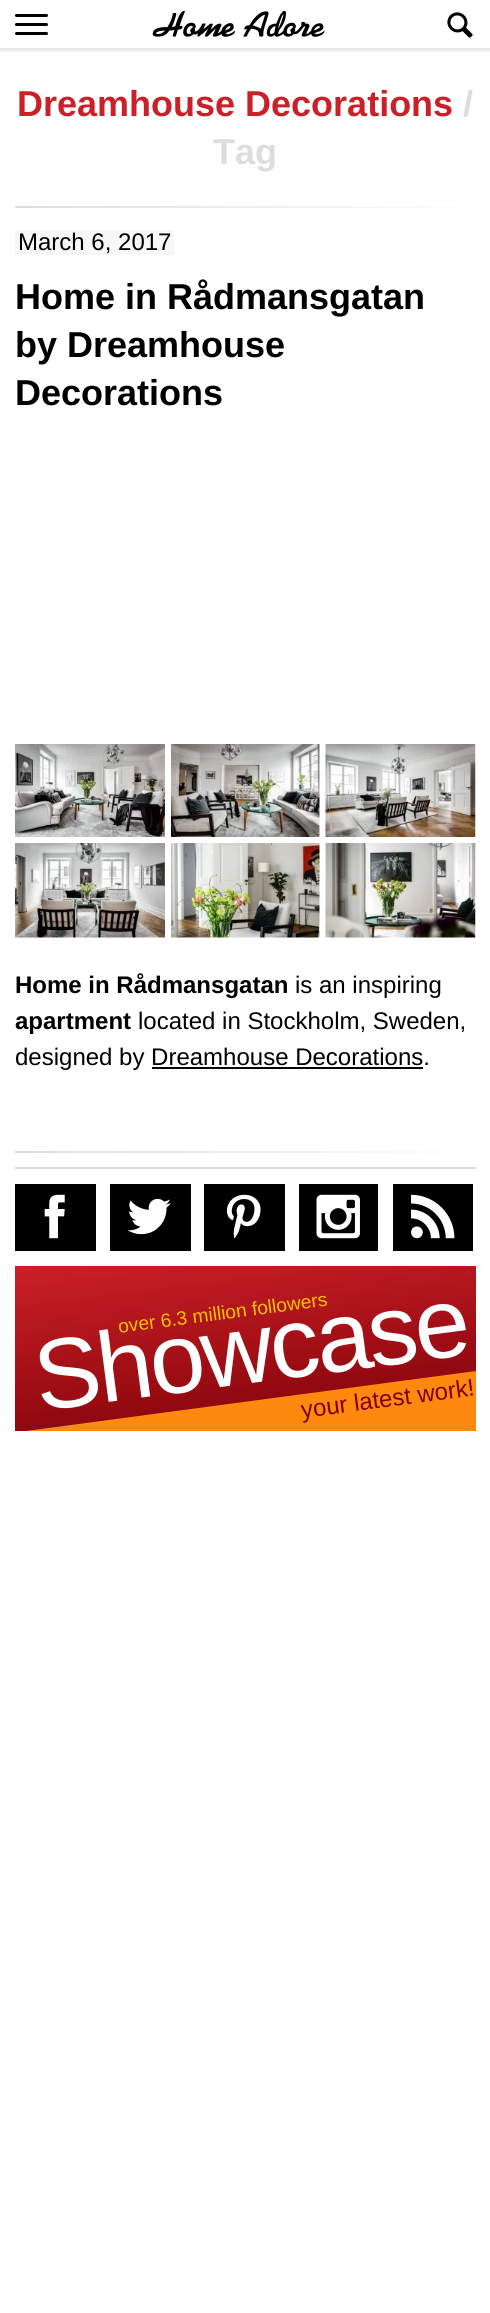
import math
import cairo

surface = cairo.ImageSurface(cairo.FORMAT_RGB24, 490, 2313)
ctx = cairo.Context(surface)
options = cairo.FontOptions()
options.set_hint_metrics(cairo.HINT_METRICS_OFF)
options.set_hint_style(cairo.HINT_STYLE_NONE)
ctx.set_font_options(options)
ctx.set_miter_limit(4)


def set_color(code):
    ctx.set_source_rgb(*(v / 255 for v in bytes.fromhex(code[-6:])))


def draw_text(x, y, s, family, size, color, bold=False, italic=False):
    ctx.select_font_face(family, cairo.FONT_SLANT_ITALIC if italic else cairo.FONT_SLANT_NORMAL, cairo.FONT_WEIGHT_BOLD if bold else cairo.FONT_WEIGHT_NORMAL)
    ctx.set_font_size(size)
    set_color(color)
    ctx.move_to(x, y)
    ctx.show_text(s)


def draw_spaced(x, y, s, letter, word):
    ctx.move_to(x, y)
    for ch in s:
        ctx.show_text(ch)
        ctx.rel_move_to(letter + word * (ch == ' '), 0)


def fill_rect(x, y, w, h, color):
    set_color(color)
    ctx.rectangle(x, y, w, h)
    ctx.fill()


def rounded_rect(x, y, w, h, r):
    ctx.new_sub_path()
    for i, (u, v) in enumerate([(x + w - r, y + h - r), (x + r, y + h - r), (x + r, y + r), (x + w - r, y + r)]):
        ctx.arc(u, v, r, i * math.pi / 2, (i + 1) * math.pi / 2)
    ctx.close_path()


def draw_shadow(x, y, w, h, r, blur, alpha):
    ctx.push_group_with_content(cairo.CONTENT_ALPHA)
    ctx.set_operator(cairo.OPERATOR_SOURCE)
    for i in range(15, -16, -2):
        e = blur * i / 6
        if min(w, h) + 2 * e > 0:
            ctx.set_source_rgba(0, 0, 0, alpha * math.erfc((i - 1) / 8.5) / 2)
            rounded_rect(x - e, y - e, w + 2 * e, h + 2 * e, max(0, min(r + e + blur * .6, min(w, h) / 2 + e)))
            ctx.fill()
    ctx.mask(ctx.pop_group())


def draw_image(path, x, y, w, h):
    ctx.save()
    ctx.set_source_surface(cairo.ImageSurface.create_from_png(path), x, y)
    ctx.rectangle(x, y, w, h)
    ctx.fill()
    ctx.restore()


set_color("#ffffff")
ctx.paint()
ctx.save()
ctx.rectangle(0, 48, 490, 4)
ctx.clip()
set_color("#000000")
draw_shadow(0, 3, 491, 48, 0, 1.5, 0.1)
ctx.restore()
set_color("#000000")
rounded_rect(15, 14, 33, 3, 1.5)
ctx.fill()
rounded_rect(15, 23, 33, 3, 1.5)
ctx.fill()
rounded_rect(15, 32, 33, 3, 1.5)
ctx.fill()
draw_image("assets/img1.png", 152, 11, 173, 26)
draw_image("assets/img2.png", 447, 12, 26, 26)
draw_text(17, 116, "Dreamhouse Decorations", "Liberation Sans", 36, "#cb2027", bold=True)
draw_text(463, 116, "/", "Liberation Sans", 36, "#dddddd", bold=True)
draw_text(213, 164, "Tag", "Liberation Sans", 36, "#dddddd", bold=True)
gradient = cairo.LinearGradient(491, 206, 15, 206)
gradient.add_color_stop_rgba(0, 1, 1, 1, 1)
gradient.add_color_stop_rgba(1, 0.867, 0.867, 0.867, 1)
ctx.set_source(gradient)
ctx.rectangle(15, 206, 441, 2)
ctx.fill()
fill_rect(15, 230, 159, 25, "#f7f7f7")
draw_text(18, 250, "March 6, 2017", "Liberation Sans", 24, "#000000")
draw_text(15, 309, "Home in Rådmansgatan", "Liberation Sans", 36, "#000000", bold=True)
draw_text(15, 357, "by Dreamhouse", "Liberation Sans", 36, "#000000", bold=True)
draw_text(15, 405, "Decorations", "Liberation Sans", 36, "#000000", bold=True)
draw_image("assets/img3.png", 15, 744, 150, 93)
draw_image("assets/img4.png", 171, 744, 149, 93)
draw_image("assets/img5.png", 325, 744, 151, 93)
draw_image("assets/img6.png", 15, 843, 150, 95)
draw_image("assets/img7.png", 171, 843, 149, 95)
draw_image("assets/img8.png", 325, 843, 151, 95)
draw_text(15, 993, "Home in Rådmansgatan", "Liberation Sans", 24, "#000000", bold=True)
draw_text(295, 993, "is an inspiring", "Liberation Sans", 24, "#000000")
draw_text(15, 1029, "apartment", "Liberation Sans", 24, "#000000", bold=True)
draw_text(138, 1029, "located in Stockholm, Sweden,", "Liberation Sans", 24, "#000000")
draw_text(15, 1065, "designed by Dreamhouse Decorations.", "Liberation Sans", 24, "#000000")
fill_rect(152, 1067, 271, 2, "#000000")
gradient = cairo.LinearGradient(476, 1151, 15, 1151)
gradient.add_color_stop_rgba(0, 1, 1, 1, 1)
gradient.add_color_stop_rgba(1, 0.867, 0.867, 0.867, 1)
ctx.set_source(gradient)
ctx.rectangle(15, 1151, 427, 2)
ctx.fill()
fill_rect(15, 1167, 461, 2, "#dddddd")
fill_rect(15, 1184, 81, 67, "#000000")
draw_image("assets/img9.png", 44, 1194, 21, 45)
fill_rect(110, 1184, 81, 67, "#000000")
draw_image("assets/img10.png", 127, 1198, 44, 37)
fill_rect(204, 1184, 81, 67, "#000000")
draw_image("assets/img11.png", 226, 1194, 35, 45)
fill_rect(299, 1184, 79, 67, "#000000")
draw_image("assets/img12.png", 316, 1194, 44, 45)
fill_rect(393, 1184, 80, 67, "#000000")
draw_image("assets/img13.png", 411, 1194, 44, 45)
gradient = cairo.LinearGradient(232, 1239, 259, 1458)
gradient.add_color_stop_rgba(0, 0.796, 0.125, 0.153, 1)
gradient.add_color_stop_rgba(1, 0.486, 0, 0.024, 1)
ctx.set_source(gradient)
ctx.rectangle(15, 1266, 461, 165)
ctx.fill()
ctx.save()
ctx.translate(119, 1333)
ctx.rotate(-7.5 * math.pi / 180)
draw_text(0, 0, "over 6.3 million followers", "Liberation Sans", 19.25, "#ffc000")
ctx.restore()
set_color("#ff880f")
ctx.new_path()
ctx.move_to(476, 1431)
ctx.line_to(26, 1431)
ctx.line_to(476, 1371)
ctx.close_path()
ctx.fill()
ctx.select_font_face("Liberation Sans")
ctx.set_font_size(99.5)
set_color("#ffffff")
ctx.save()
ctx.translate(39, 1411)
ctx.rotate(-7.5 * math.pi / 180)
draw_spaced(0, 0, "Showcase", -3, 0)
ctx.restore()
ctx.save()
ctx.translate(302, 1418)
ctx.rotate(-7.5 * math.pi / 180)
draw_text(0, 0, "your latest work!", "Liberation Sans", 24, "#7c0006")
ctx.restore()
surface.write_to_png("output.png")
